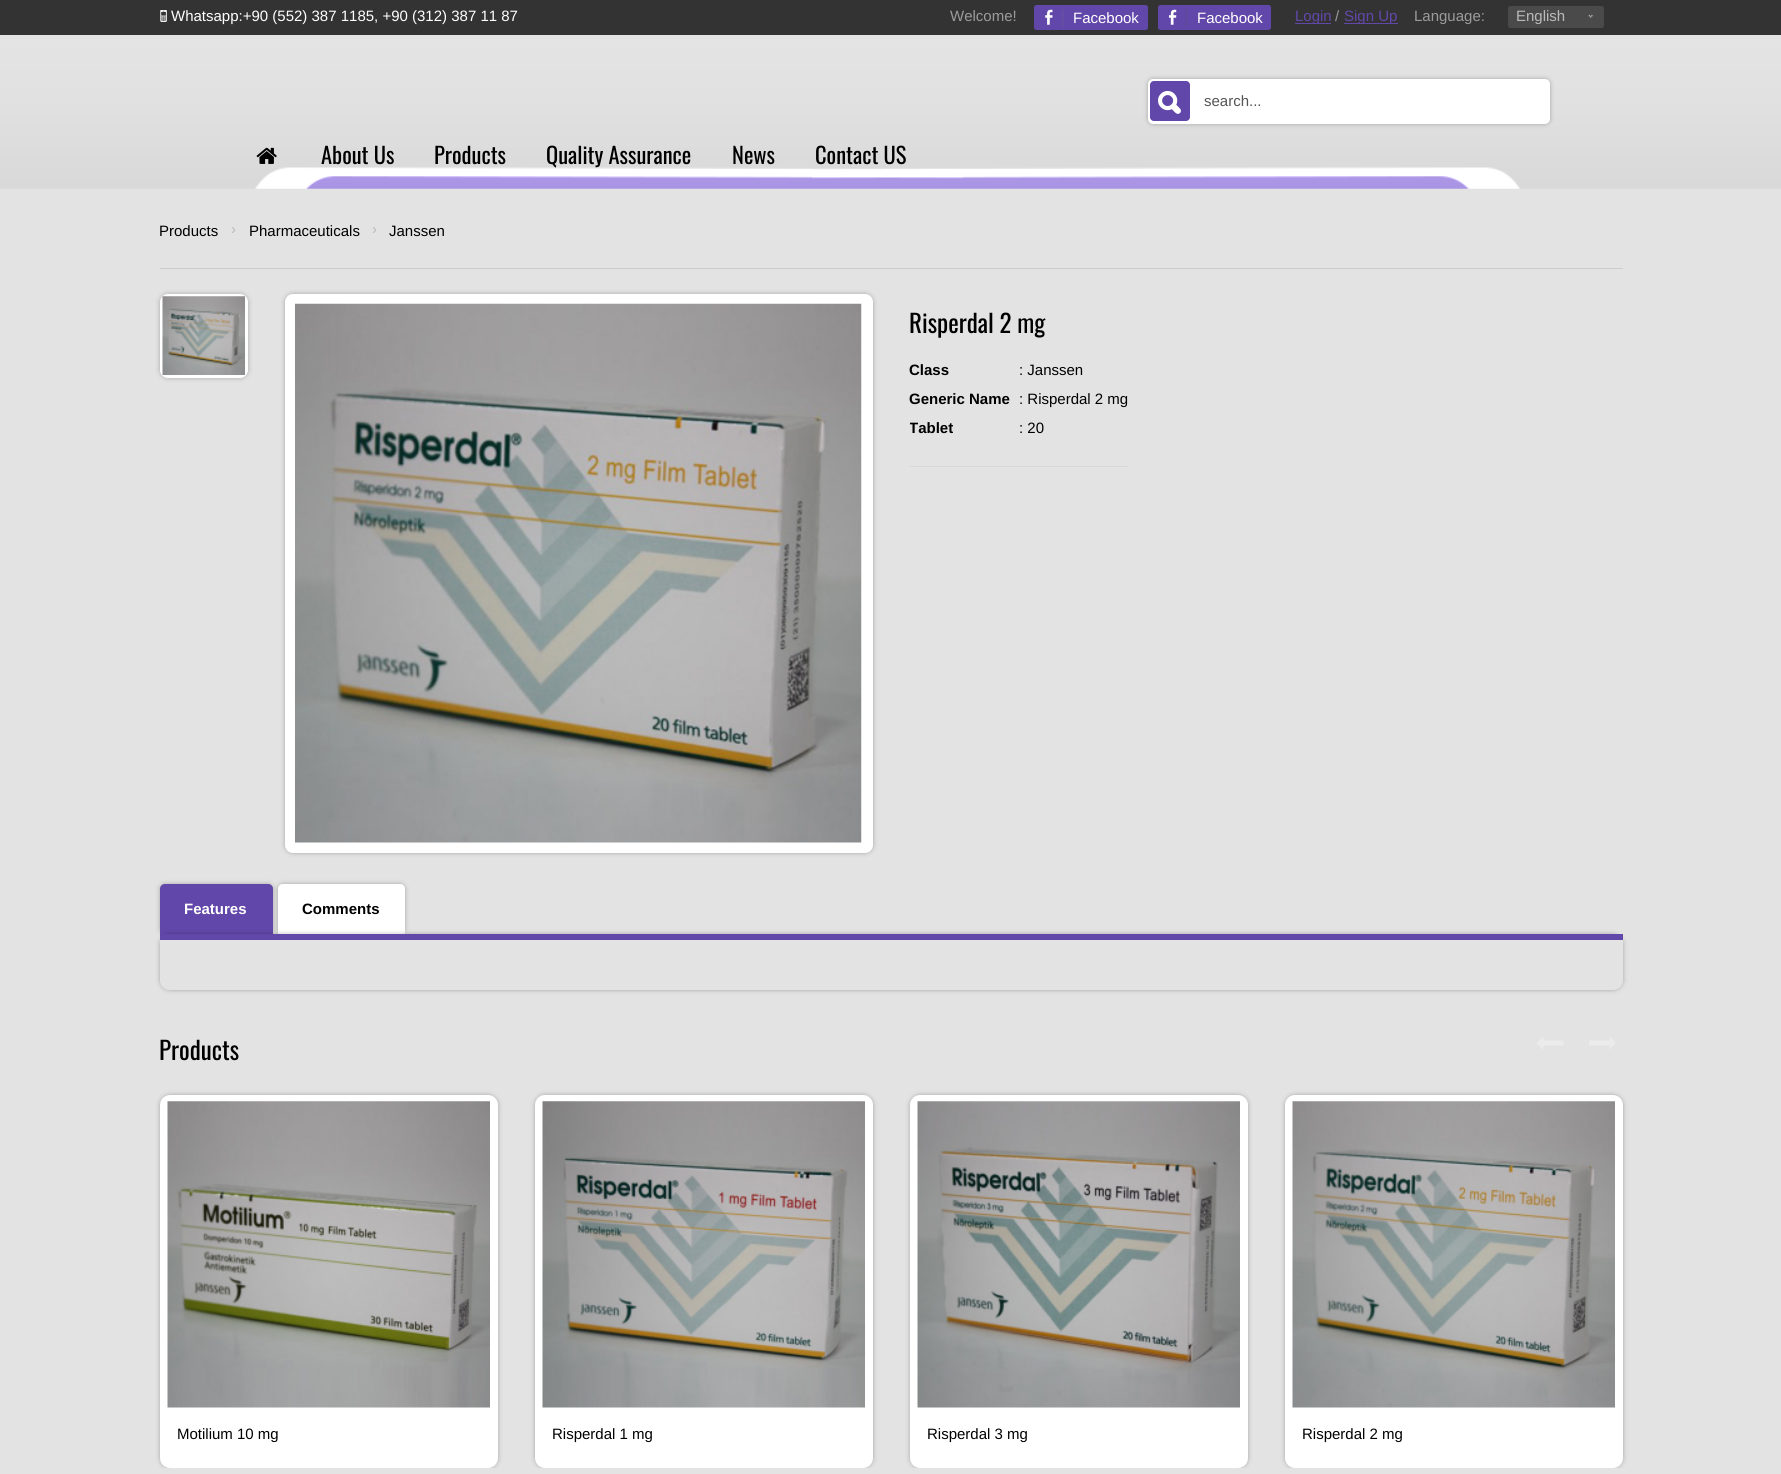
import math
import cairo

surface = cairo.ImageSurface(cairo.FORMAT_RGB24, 1781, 1474)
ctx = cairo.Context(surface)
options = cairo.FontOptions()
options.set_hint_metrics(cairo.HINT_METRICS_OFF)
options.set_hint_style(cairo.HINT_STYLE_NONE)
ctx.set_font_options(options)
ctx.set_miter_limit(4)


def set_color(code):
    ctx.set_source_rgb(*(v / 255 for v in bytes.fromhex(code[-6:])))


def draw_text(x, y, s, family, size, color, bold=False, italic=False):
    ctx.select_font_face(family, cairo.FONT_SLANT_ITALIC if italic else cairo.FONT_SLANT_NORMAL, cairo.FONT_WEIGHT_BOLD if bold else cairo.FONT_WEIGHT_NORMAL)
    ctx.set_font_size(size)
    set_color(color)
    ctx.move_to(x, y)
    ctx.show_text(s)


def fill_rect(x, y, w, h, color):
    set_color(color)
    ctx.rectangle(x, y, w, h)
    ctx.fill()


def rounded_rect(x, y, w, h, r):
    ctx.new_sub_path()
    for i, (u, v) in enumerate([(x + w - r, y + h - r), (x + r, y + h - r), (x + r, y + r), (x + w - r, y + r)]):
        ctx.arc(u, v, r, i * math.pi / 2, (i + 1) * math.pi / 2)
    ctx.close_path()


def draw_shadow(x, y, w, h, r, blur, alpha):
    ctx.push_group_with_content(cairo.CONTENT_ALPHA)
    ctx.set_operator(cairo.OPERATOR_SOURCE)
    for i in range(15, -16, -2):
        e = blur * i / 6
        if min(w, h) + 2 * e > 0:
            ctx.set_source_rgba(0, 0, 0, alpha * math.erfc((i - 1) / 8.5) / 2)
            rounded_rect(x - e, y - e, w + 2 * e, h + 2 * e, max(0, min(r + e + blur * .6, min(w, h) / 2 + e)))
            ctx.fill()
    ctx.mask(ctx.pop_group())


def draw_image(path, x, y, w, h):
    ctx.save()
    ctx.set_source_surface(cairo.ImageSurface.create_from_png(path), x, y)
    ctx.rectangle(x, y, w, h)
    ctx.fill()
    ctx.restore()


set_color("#e3e3e3")
ctx.paint()
fill_rect(0, 0, 1781, 35, "#333333")
draw_image("assets/img1.png", 160, 10, 7, 12)
draw_text(171, 21, "Whatsapp:+90 (552) 387 1185, +90 (312) 387 11 87", "Liberation Sans", 15, "#ffffff")
draw_text(950, 21, "Welcome!", "Liberation Sans", 15, "#9b9b9b")
set_color("#6247aa")
rounded_rect(1034, 5, 114, 25, 2.5)
ctx.fill()
fill_rect(1061, 9, 3, 18, "#654da6")
draw_image("assets/img2.png", 1045, 9, 8, 16)
draw_text(1073, 23, "Facebook", "Liberation Sans", 15, "#ffffff")
set_color("#6247aa")
rounded_rect(1158, 5, 113, 25, 2.5)
ctx.fill()
fill_rect(1185, 8, 3, 19, "#6048a1")
draw_image("assets/img3.png", 1168, 9, 9, 16)
draw_text(1197, 23, "Facebook", "Liberation Sans", 15, "#ffffff")
fill_rect(1295, 23, 36, 1, "#6247aa")
draw_text(1295, 21, "Login", "Liberation Sans", 15, "#6247aa")
draw_text(1335, 21, "/", "Liberation Sans", 15, "#9b9b9b")
fill_rect(1344, 23, 54, 1, "#6247aa")
draw_text(1344, 21, "Sign Up", "Liberation Sans", 15, "#6247aa")
draw_text(1414, 21, "Language:", "Liberation Sans", 15, "#9b9b9b")
set_color("#4a4a4a")
rounded_rect(1508, 6, 96, 22, 2.5)
ctx.fill()
draw_image("assets/img4.png", 1588, 14, 5, 4)
draw_text(1516, 21, "English", "Liberation Sans", 15, "#bababa")
draw_image("assets/img5.png", 0, 35, 1781, 154)
set_color("#000000")
draw_shadow(1148, 79, 402, 45, 5, 2.5, 0.27)
set_color("#ffffff")
rounded_rect(1149.5, 80.5, 399, 42, 3.5)
ctx.fill_preserve()
ctx.set_line_width(3)
ctx.stroke()
set_color("#6247aa")
rounded_rect(1150, 81, 40, 40, 4)
ctx.fill()
draw_image("assets/img6.png", 1158, 90, 23, 24)
draw_text(1204, 106, "search...", "Liberation Sans", 15, "#555555")
draw_image("assets/img7.png", 256, 147, 21, 17)
draw_text(321, 164, "About Us", "Oswald", 22.5, "#000000")
draw_text(434, 164, "Products", "Oswald", 22.5, "#000000")
draw_text(546, 164, "Quality Assurance", "Oswald", 22.5, "#000000")
draw_text(732, 164, "News", "Oswald", 22.5, "#000000")
draw_text(815, 164, "Contact US", "Oswald", 22.5, "#000000")
fill_rect(160, 268, 1463, 1, "#cccccc")
draw_text(159, 236, "Products", "Liberation Sans", 15, "#000000")
draw_text(231, 234, "›", "Liberation Sans", 15, "#bababa")
draw_text(249, 236, "Pharmaceuticals", "Liberation Sans", 15, "#000000")
draw_text(372, 234, "›", "Liberation Sans", 15, "#bababa")
draw_text(389, 236, "Janssen", "Liberation Sans", 15, "#000000")
set_color("#000000")
draw_shadow(160, 294, 88, 84, 8, 2.5, 0.27)
set_color("#ffffff")
rounded_rect(160, 294, 88, 84, 8)
ctx.fill()
draw_image("assets/img8.png", 162, 296, 83, 79)
set_color("#000000")
draw_shadow(285, 294, 588, 559, 8, 2.5, 0.27)
set_color("#ffffff")
rounded_rect(285, 294, 588, 559, 8)
ctx.fill()
draw_image("assets/img9.png", 295, 303, 567, 540)
draw_text(909, 333, "Risperdal 2 mg", "Oswald", 25, "#000000")
fill_rect(910, 466, 218, 1, "#d7d7d7")
draw_text(909, 375, "Class", "Liberation Sans", 15, "#000000", bold=True)
draw_text(1019, 375, ": Janssen", "Liberation Sans", 15, "#000000")
draw_text(909, 404, "Generic Name", "Liberation Sans", 15, "#000000", bold=True)
draw_text(1019, 404, ": Risperdal 2 mg", "Liberation Sans", 15, "#000000")
ctx.save()
ctx.rectangle(910, 294, 218, 224)
ctx.clip()
draw_text(909, 433, "Tablet", "Liberation Sans", 15, "#000000", bold=True)
ctx.restore()
draw_text(1019, 433, ": 20", "Liberation Sans", 15, "#000000")
set_color("#000000")
draw_shadow(160, 884, 113, 50, 5, 2.5, 0.27)
set_color("#6247aa")
ctx.new_path()
ctx.move_to(165, 884)
ctx.line_to(268, 884)
ctx.curve_to(271, 884, 273, 886, 273, 889)
ctx.line_to(273, 934)
ctx.line_to(160, 934)
ctx.line_to(160, 889)
ctx.curve_to(160, 886, 162, 884, 165, 884)
ctx.close_path()
ctx.fill()
draw_text(184, 914, "Features", "Liberation Sans", 15, "#ffffff", bold=True)
set_color("#000000")
draw_shadow(278, 884, 127, 50, 5, 2.5, 0.27)
set_color("#ffffff")
ctx.new_path()
ctx.move_to(283, 884)
ctx.line_to(400, 884)
ctx.curve_to(403, 884, 405, 886, 405, 889)
ctx.line_to(405, 934)
ctx.line_to(278, 934)
ctx.line_to(278, 889)
ctx.curve_to(278, 886, 280, 884, 283, 884)
ctx.close_path()
ctx.fill()
draw_text(302, 914, "Comments", "Liberation Sans", 15, "#000000", bold=True)
ctx.save()
ctx.set_fill_rule(cairo.FILL_RULE_EVEN_ODD)
ctx.new_path()
ctx.move_to(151, 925)
ctx.line_to(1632, 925)
ctx.line_to(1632, 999)
ctx.line_to(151, 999)
ctx.close_path()
ctx.move_to(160, 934)
ctx.line_to(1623, 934)
ctx.line_to(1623, 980)
ctx.curve_to(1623, 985.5, 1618.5, 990, 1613, 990)
ctx.line_to(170, 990)
ctx.curve_to(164.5, 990, 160, 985.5, 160, 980)
ctx.close_path()
ctx.clip()
set_color("#000000")
draw_shadow(160, 934, 1463, 56, 10, 2.5, 0.27)
ctx.restore()
fill_rect(160, 934, 1463, 6, "#6247aa")
draw_text(159, 1060, "Products", "Oswald", 25, "#000000")
set_color("#ebebeb")
ctx.new_path()
ctx.move_to(1543.5, 1050)
ctx.line_to(1536.5, 1043)
ctx.line_to(1543.5, 1036)
ctx.line_to(1543.5, 1040.5)
ctx.line_to(1563.5, 1040.5)
ctx.line_to(1563.5, 1045.5)
ctx.line_to(1543.5, 1045.5)
ctx.close_path()
ctx.fill()
ctx.new_path()
ctx.move_to(1609.5, 1050)
ctx.line_to(1609.5, 1045.5)
ctx.line_to(1589, 1045.5)
ctx.line_to(1589, 1040.5)
ctx.line_to(1609.5, 1040.5)
ctx.line_to(1609.5, 1036)
ctx.line_to(1616, 1043)
ctx.close_path()
ctx.fill()
ctx.save()
ctx.rectangle(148, 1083, 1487, 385)
ctx.clip()
set_color("#000000")
draw_shadow(160, 1095, 338, 373, 10, 2.5, 0.27)
ctx.restore()
set_color("#ffffff")
rounded_rect(160, 1095, 338, 373, 10)
ctx.fill()
draw_image("assets/img10.png", 167, 1101, 323, 307)
draw_text(177, 1439, "Motilium 10 mg", "Liberation Sans", 15, "#000000")
ctx.save()
ctx.rectangle(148, 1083, 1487, 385)
ctx.clip()
set_color("#000000")
draw_shadow(535, 1095, 338, 373, 10, 2.5, 0.27)
ctx.restore()
set_color("#ffffff")
rounded_rect(535, 1095, 338, 373, 10)
ctx.fill()
draw_image("assets/img11.png", 542, 1101, 323, 307)
draw_text(552, 1439, "Risperdal 1 mg", "Liberation Sans", 15, "#000000")
ctx.save()
ctx.rectangle(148, 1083, 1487, 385)
ctx.clip()
set_color("#000000")
draw_shadow(910, 1095, 338, 373, 10, 2.5, 0.27)
ctx.restore()
set_color("#ffffff")
rounded_rect(910, 1095, 338, 373, 10)
ctx.fill()
draw_image("assets/img12.png", 917, 1101, 323, 307)
draw_text(927, 1439, "Risperdal 3 mg", "Liberation Sans", 15, "#000000")
ctx.save()
ctx.rectangle(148, 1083, 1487, 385)
ctx.clip()
set_color("#000000")
draw_shadow(1285, 1095, 338, 373, 10, 2.5, 0.27)
ctx.restore()
set_color("#ffffff")
rounded_rect(1285, 1095, 338, 373, 10)
ctx.fill()
draw_image("assets/img13.png", 1292, 1101, 323, 307)
draw_text(1302, 1439, "Risperdal 2 mg", "Liberation Sans", 15, "#000000")
surface.write_to_png("output.png")
